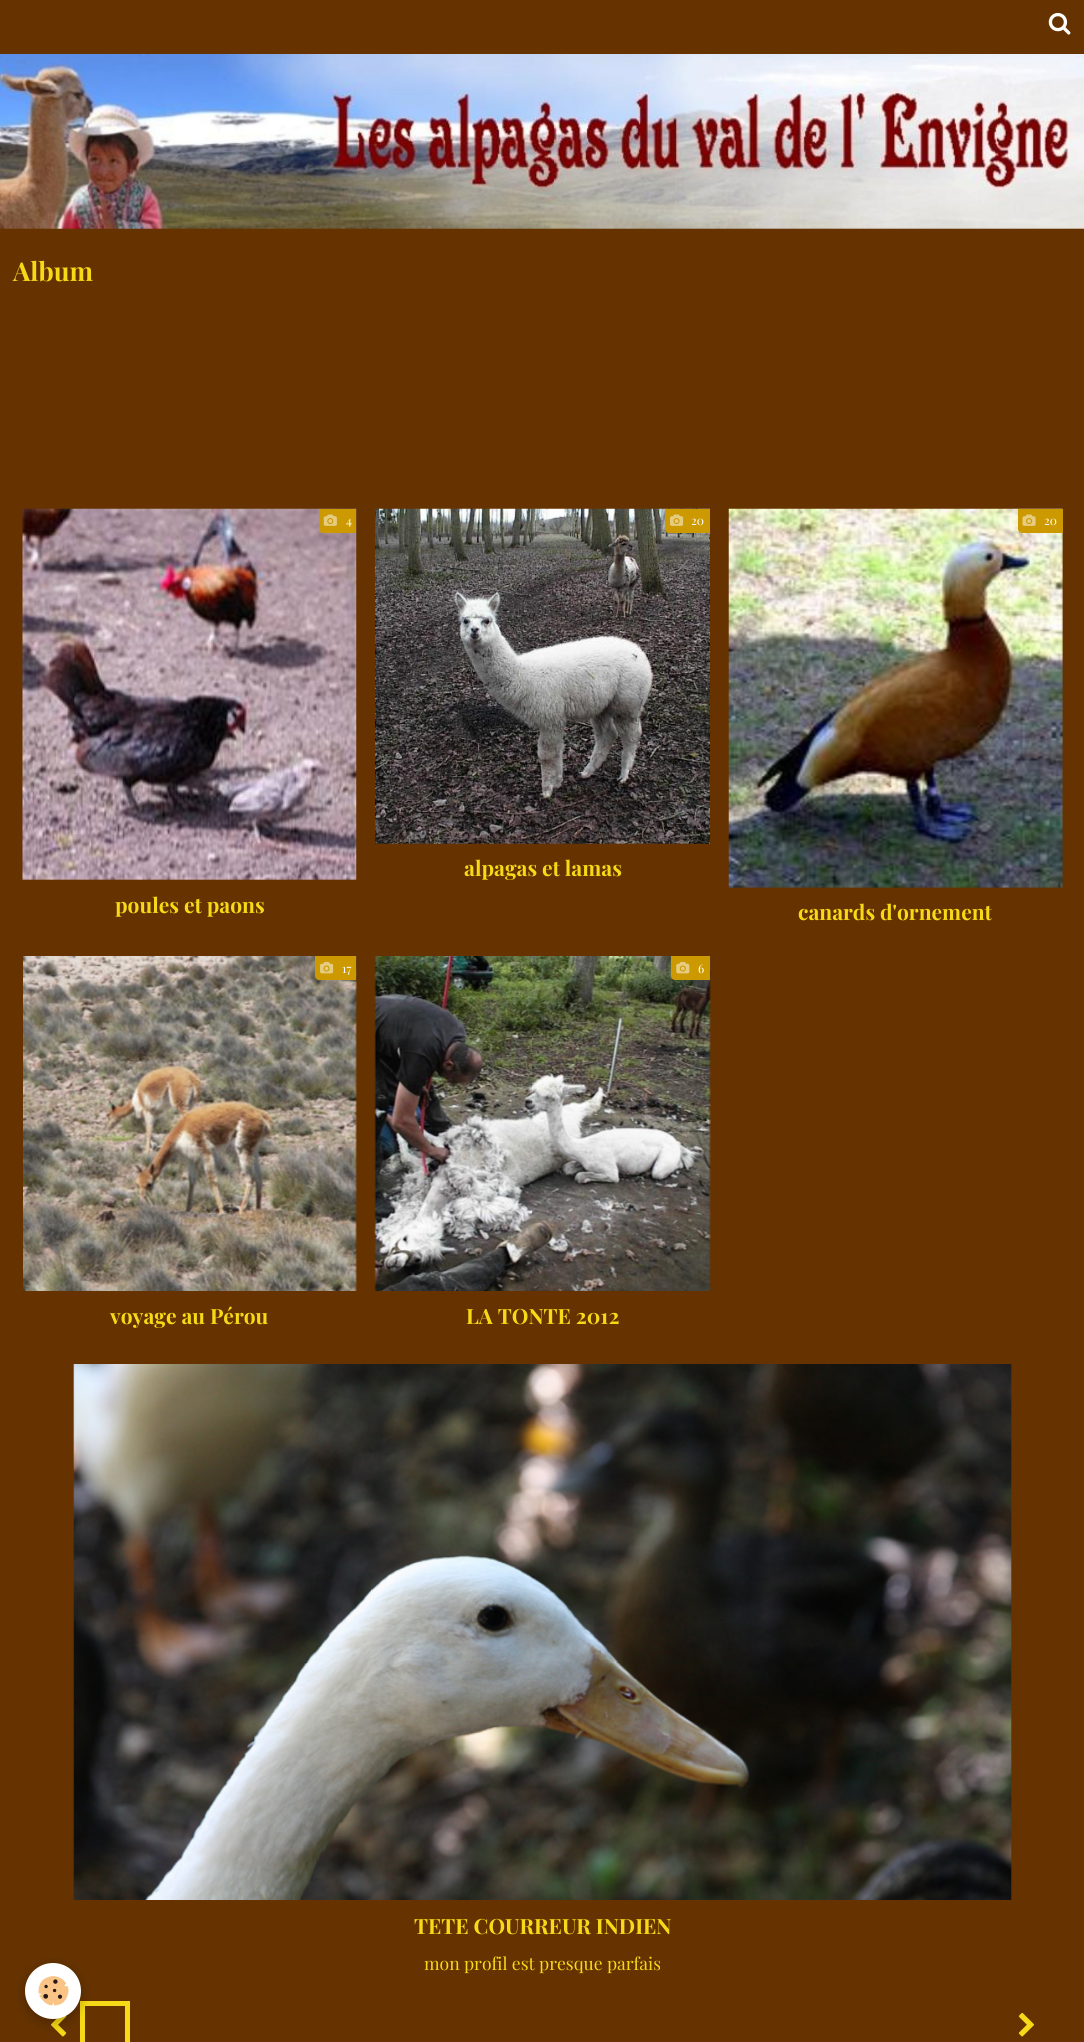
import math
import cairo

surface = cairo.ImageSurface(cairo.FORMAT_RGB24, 1084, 2042)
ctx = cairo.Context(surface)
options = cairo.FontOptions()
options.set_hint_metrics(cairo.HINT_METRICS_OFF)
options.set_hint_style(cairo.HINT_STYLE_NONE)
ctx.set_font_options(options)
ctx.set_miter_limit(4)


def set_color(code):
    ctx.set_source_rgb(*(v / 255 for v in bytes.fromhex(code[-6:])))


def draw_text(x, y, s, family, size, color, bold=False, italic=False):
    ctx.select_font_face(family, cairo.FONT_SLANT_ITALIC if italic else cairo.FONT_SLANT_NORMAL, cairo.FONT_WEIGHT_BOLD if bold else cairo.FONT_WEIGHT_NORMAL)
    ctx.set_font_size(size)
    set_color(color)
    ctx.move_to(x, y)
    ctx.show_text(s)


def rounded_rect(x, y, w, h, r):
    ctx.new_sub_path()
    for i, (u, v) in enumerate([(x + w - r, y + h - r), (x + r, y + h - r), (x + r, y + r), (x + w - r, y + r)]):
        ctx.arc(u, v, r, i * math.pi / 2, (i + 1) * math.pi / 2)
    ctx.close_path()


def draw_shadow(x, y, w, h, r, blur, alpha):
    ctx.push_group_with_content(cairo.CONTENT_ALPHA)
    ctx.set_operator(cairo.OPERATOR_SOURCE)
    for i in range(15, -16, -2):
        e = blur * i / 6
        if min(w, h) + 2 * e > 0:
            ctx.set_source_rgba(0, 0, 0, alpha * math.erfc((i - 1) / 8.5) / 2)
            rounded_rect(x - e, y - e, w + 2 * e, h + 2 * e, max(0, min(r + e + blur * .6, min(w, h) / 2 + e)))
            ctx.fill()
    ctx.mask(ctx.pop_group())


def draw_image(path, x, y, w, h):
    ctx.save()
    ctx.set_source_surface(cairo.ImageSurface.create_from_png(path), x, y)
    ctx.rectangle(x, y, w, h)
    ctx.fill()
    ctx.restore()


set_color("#663300")
ctx.paint()
draw_image("assets/img1.png", 1048, 12, 23, 23)
draw_image("assets/img2.png", 0, 54, 1084, 175)
draw_text(13, 281, "Album", "Playfair Display", 26, "#f7da17", bold=True)
draw_image("assets/img3.png", 22, 508, 335, 372)
set_color("#cc9900")
ctx.new_path()
ctx.move_to(319, 509)
ctx.line_to(356, 509)
ctx.line_to(356, 533)
ctx.line_to(323, 533)
ctx.curve_to(321, 533, 319, 531, 319, 529)
ctx.close_path()
ctx.fill()
draw_image("assets/img4.png", 323, 514, 14, 12)
draw_text(346, 525, "4", "Playfair Display", 12, "#ffffff")
draw_text(115, 913, "poules et paons", "Playfair Display", 21, "#f7da17", bold=True)
draw_image("assets/img5.png", 375, 508, 335, 336)
set_color("#cc9900")
ctx.new_path()
ctx.move_to(665, 509)
ctx.line_to(710, 509)
ctx.line_to(710, 533)
ctx.line_to(669, 533)
ctx.curve_to(667, 533, 665, 531, 665, 529)
ctx.close_path()
ctx.fill()
draw_image("assets/img6.png", 670, 514, 14, 12)
draw_text(691, 525, "20", "Playfair Display", 12, "#ffffff")
draw_text(464, 876, "alpagas et lamas", "Playfair Display", 21, "#f7da17", bold=True)
draw_image("assets/img7.png", 728, 508, 335, 380)
set_color("#cc9900")
ctx.new_path()
ctx.move_to(1018, 509)
ctx.line_to(1063, 509)
ctx.line_to(1063, 533)
ctx.line_to(1022, 533)
ctx.curve_to(1020, 533, 1018, 531, 1018, 529)
ctx.close_path()
ctx.fill()
draw_image("assets/img8.png", 1022, 514, 14, 12)
draw_text(1044, 525, "20", "Playfair Display", 12, "#ffffff")
draw_text(798, 920, "canards d'ornement", "Playfair Display", 21, "#f7da17", bold=True)
draw_image("assets/img9.png", 23, 956, 334, 335)
set_color("#cc9900")
ctx.new_path()
ctx.move_to(315, 956)
ctx.line_to(356, 956)
ctx.line_to(356, 980)
ctx.line_to(319, 980)
ctx.curve_to(317, 980, 315, 978, 315, 976)
ctx.close_path()
ctx.fill()
draw_image("assets/img10.png", 320, 962, 14, 12)
draw_text(342, 973, "17", "Playfair Display", 12, "#ffffff")
draw_text(110, 1324, "voyage au Pérou", "Playfair Display", 21, "#f7da17", bold=True)
draw_image("assets/img11.png", 374, 956, 337, 335)
set_color("#cc9900")
ctx.new_path()
ctx.move_to(671, 956)
ctx.line_to(710, 956)
ctx.line_to(710, 980)
ctx.line_to(675, 980)
ctx.curve_to(673, 980, 671, 978, 671, 976)
ctx.close_path()
ctx.fill()
draw_image("assets/img12.png", 676, 962, 14, 12)
draw_text(698, 973, "6", "Playfair Display", 12, "#ffffff")
draw_text(466, 1324, "LA TONTE 2012", "Playfair Display", 21, "#f7da17", bold=True)
draw_image("assets/img13.png", 73, 1364, 939, 536)
draw_text(414, 1934, "TETE COURREUR INDIEN", "Playfair Display", 21, "#f7da17", bold=True)
draw_text(424, 1970, "mon profil est presque parfais", "Playfair Display", 17.5, "#f7da17")
draw_image("assets/img14.png", 51, 2015, 16, 22)
ctx.rectangle(82.5, 2003.5, 45, 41)
ctx.set_line_width(5)
ctx.stroke()
draw_image("assets/img15.png", 1018, 2012, 16, 25)
set_color("#000000")
draw_shadow(25, 1966, 56, 57, 28, 6, 0.24)
set_color("#ffffff")
ctx.arc(53, 1991, 28, 0, 2 * math.pi)
ctx.fill()
draw_image("assets/img16.png", 38, 1976, 31, 30)
surface.write_to_png("output.png")
